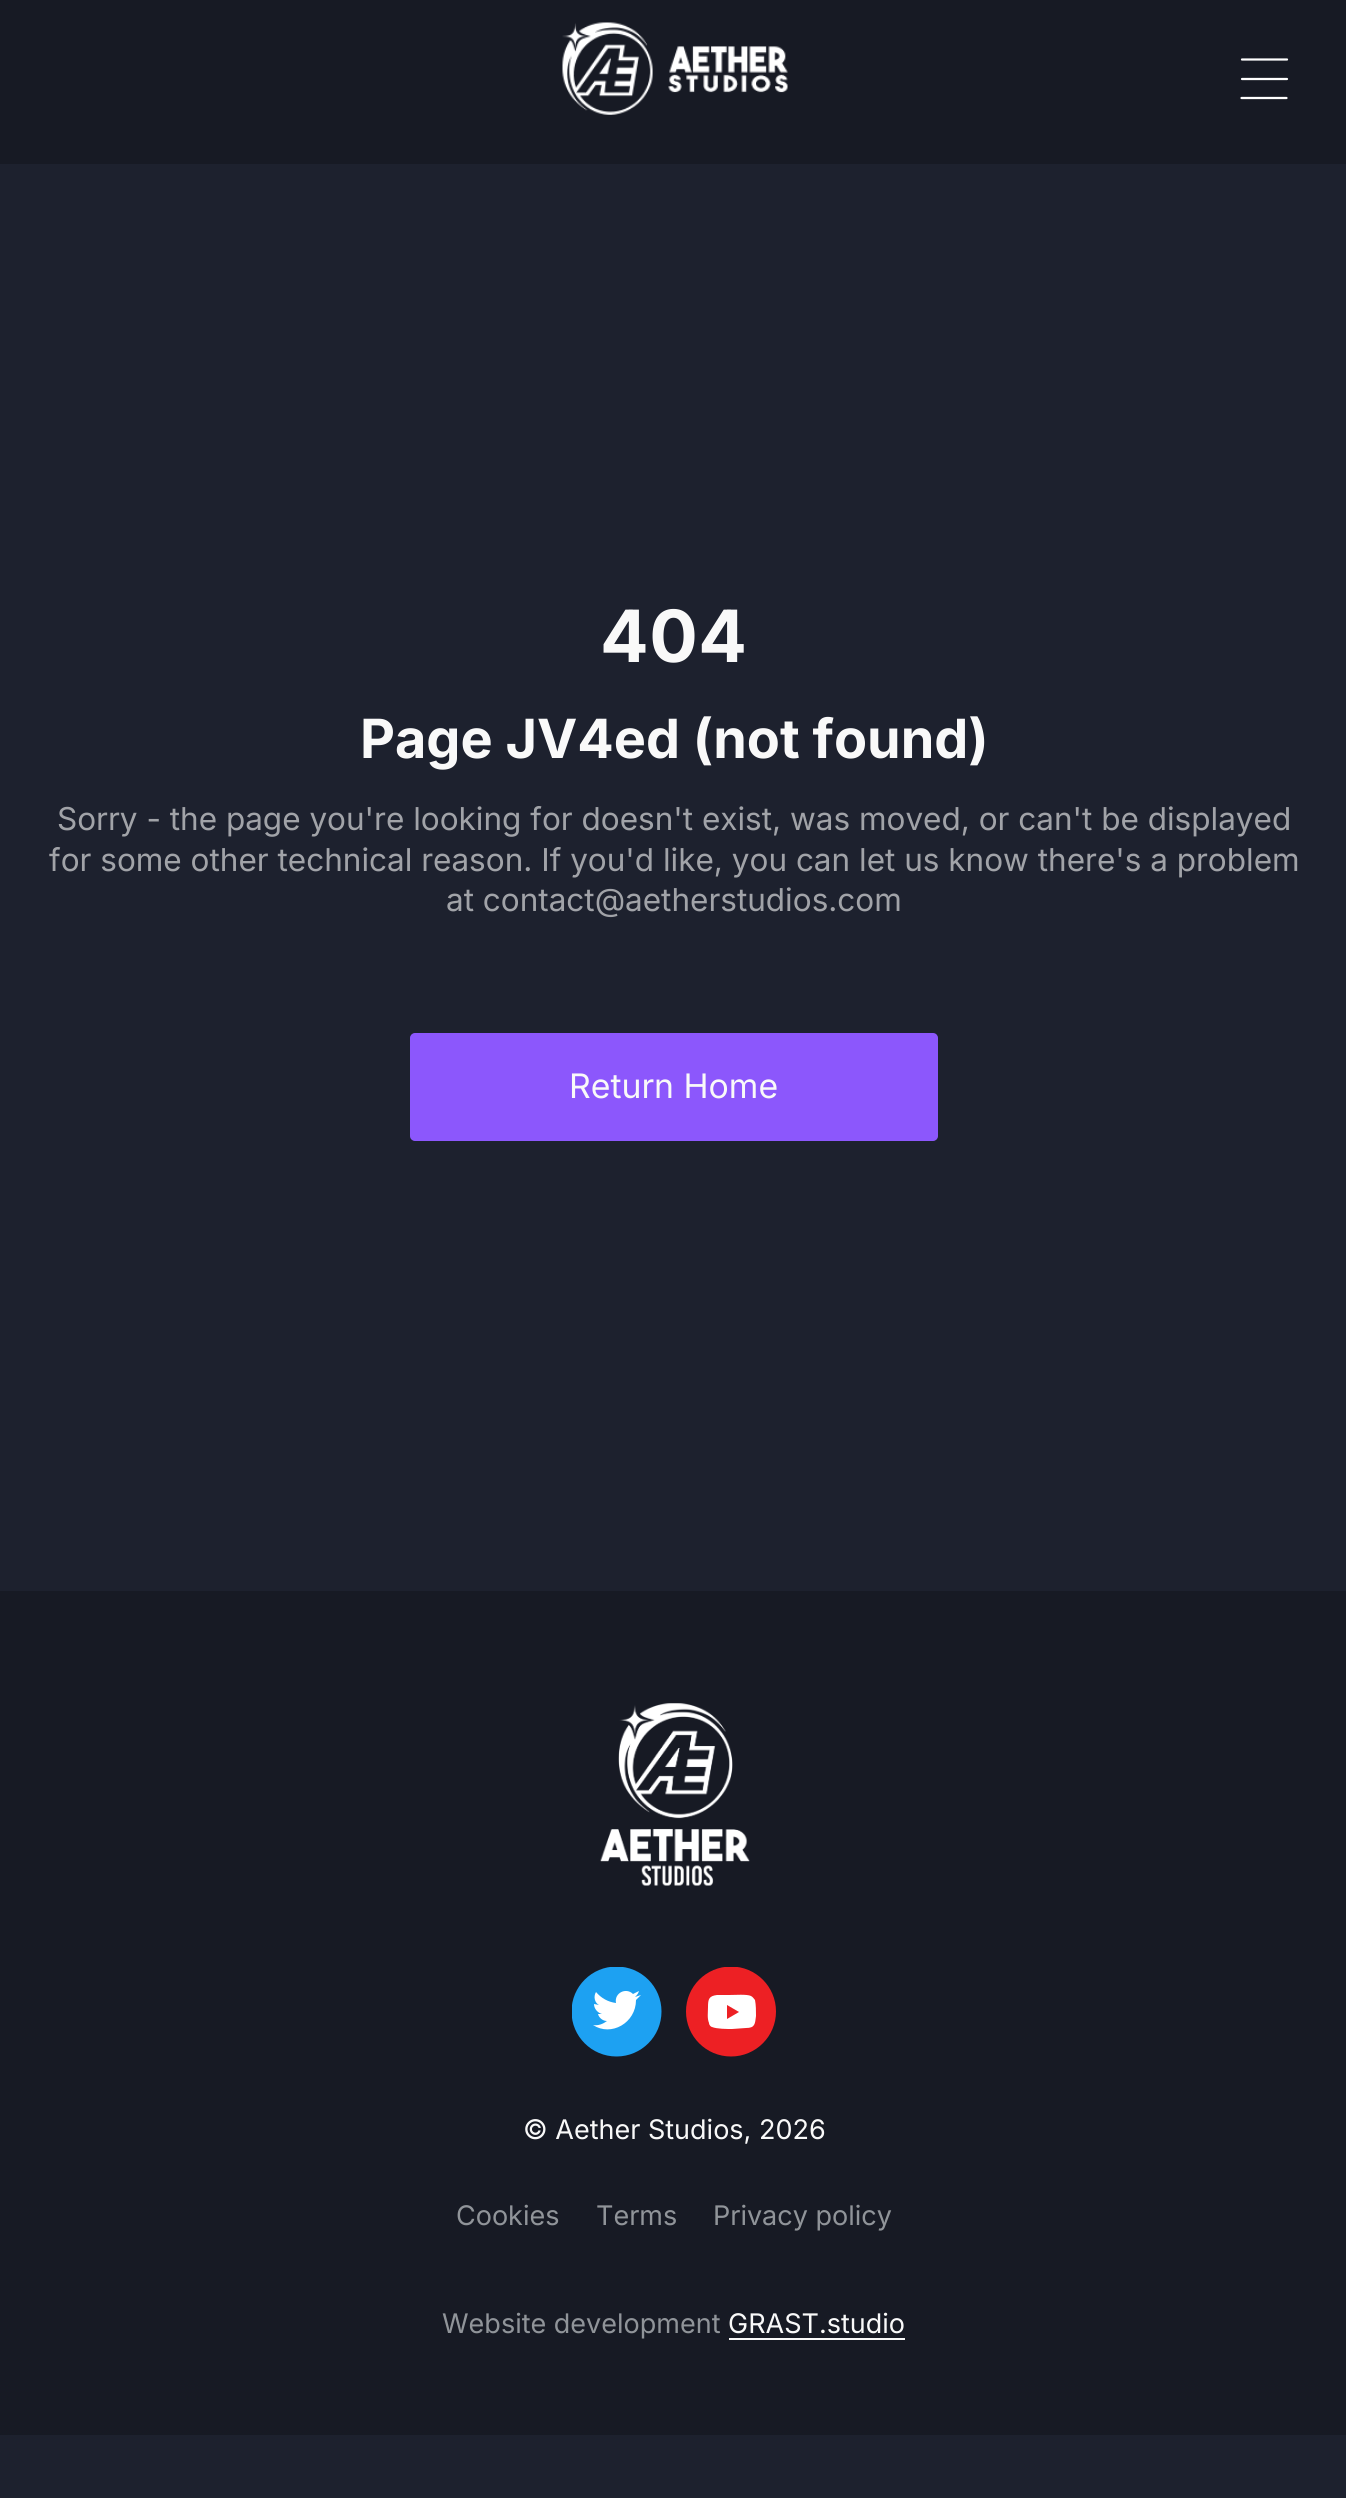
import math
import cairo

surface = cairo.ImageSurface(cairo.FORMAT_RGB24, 1346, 2498)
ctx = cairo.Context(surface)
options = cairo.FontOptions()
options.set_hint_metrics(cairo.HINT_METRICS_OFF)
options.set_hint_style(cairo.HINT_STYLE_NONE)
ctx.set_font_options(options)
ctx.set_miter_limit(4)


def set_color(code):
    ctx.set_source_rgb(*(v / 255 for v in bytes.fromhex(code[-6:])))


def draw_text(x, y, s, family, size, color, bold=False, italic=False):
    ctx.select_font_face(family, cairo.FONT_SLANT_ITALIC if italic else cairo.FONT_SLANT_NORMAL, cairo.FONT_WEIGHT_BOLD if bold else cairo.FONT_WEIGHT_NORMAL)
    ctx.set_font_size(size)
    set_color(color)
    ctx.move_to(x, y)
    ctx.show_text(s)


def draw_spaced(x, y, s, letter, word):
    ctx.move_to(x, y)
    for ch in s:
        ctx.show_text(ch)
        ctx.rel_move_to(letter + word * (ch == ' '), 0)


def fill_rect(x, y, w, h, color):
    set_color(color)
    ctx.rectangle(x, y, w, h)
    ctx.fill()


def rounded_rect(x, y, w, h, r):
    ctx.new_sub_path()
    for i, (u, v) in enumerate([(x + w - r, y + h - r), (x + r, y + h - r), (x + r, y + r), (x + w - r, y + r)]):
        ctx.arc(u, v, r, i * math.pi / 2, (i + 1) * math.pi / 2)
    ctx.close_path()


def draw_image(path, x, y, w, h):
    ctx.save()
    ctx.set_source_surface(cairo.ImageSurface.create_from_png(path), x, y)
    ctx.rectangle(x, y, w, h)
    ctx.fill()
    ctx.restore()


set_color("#1d212e")
ctx.paint()
fill_rect(0, 0, 1346, 164, "#171a24")
draw_image("assets/img1.png", 562, 22, 226, 93)
ctx.new_path()
ctx.move_to(1242, 59.5)
ctx.line_to(1287, 59.5)
ctx.move_to(1287, 79)
ctx.line_to(1242, 79)
ctx.move_to(1286.5, 98)
ctx.line_to(1241.5, 98)
set_color("#ffffff")
ctx.set_line_width(2.2)
ctx.set_line_cap(cairo.LINE_CAP_ROUND)
ctx.stroke()
ctx.select_font_face("Inter", cairo.FONT_SLANT_NORMAL, cairo.FONT_WEIGHT_BOLD)
ctx.set_font_size(72)
set_color("#f9f9f9")
draw_spaced(600, 662, "404", 0.5, 0)
draw_text(360, 758, "Page JV4ed (not found)", "Inter", 54, "#f9f9f9", bold=True)
draw_text(57, 830, "Sorry - the page you're looking for doesn't exist, was moved, or can't be displayed", "Inter", 31.5, "#a1a3a8")
draw_text(49, 871, "for some other technical reason. If you'd like, you can let us know there's a problem", "Inter", 31.5, "#a1a3a8")
draw_text(446, 911, "at contact@aetherstudios.com", "Inter", 31.5, "#a1a3a8")
set_color("#8c57fc")
rounded_rect(411, 1034, 526, 106, 4)
ctx.fill_preserve()
ctx.set_line_width(2)
ctx.set_line_cap(cairo.LINE_CAP_BUTT)
ctx.stroke()
draw_text(569, 1098, "Return Home", "Inter", 33.75, "#f9f9f9")
fill_rect(0, 1591, 1346, 844, "#171a24")
draw_image("assets/img2.png", 600, 1703, 150, 183)
ctx.save()
ctx.rectangle(572, 1967, 90, 90)
ctx.clip()
set_color("#1da1f2")
ctx.arc(616.5, 2011.5, 45, 0, 2 * math.pi)
ctx.fill()
ctx.restore()
ctx.save()
ctx.rectangle(686, 1967, 90, 90)
ctx.clip()
set_color("#ed2024")
ctx.arc(731, 2011.5, 45, 0, 2 * math.pi)
ctx.fill()
ctx.restore()
set_color("#ffffff")
ctx.new_path()
ctx.move_to(641, 1995)
ctx.line_to(635, 1997)
ctx.curve_to(637, 1995, 638, 1994, 639, 1991)
ctx.line_to(633, 1994)
ctx.curve_to(626, 1987, 614, 1993, 616, 2003)
ctx.curve_to(608, 2002, 601, 1998, 596, 1992)
ctx.curve_to(593, 1997, 595, 2003, 599, 2005)
ctx.line_to(594, 2004)
ctx.curve_to(594, 2009, 598, 2013, 602, 2014)
ctx.line_to(598, 2014)
ctx.curve_to(599, 2018, 603, 2021, 607, 2021)
ctx.curve_to(603, 2024, 598, 2026, 593, 2025)
ctx.curve_to(611, 2037, 636, 2023, 636, 2000)
ctx.close_path()
ctx.fill()
ctx.new_path()
ctx.move_to(755, 2000)
ctx.curve_to(756, 2005, 756, 2011, 756, 2016)
ctx.curve_to(755, 2024, 755, 2028, 746, 2028)
ctx.line_to(732, 2029)
ctx.curve_to(727, 2029, 717, 2029, 712, 2027)
ctx.curve_to(711, 2027, 709, 2025, 709, 2023)
ctx.curve_to(707, 2018, 708, 2013, 708, 2007)
ctx.curve_to(708, 1999, 709, 1996, 717, 1995)
ctx.line_to(729, 1995)
ctx.curve_to(735, 1995, 747, 1994, 751, 1996)
ctx.curve_to(753, 1997, 754, 1999, 755, 2000)
ctx.move_to(739, 2012)
ctx.line_to(727, 2005)
ctx.line_to(727, 2019)
ctx.close_path()
ctx.fill()
draw_text(523, 2139, "© Aether Studios, 2026", "Inter", 27, "#f9f9f9")
draw_text(456, 2225, "Cookies", "Inter", 27, "#909499")
draw_text(596, 2225, "Terms", "Inter", 27, "#909499")
draw_text(713, 2225, "Privacy policy", "Inter", 27, "#909499")
draw_text(442, 2333, "Website development", "Inter", 27, "#909499")
draw_text(728, 2333, "GRAST.studio", "Inter", 27, "#f9f9f9")
fill_rect(729, 2338, 176, 2, "#f9f9f9")
surface.write_to_png("output.png")
